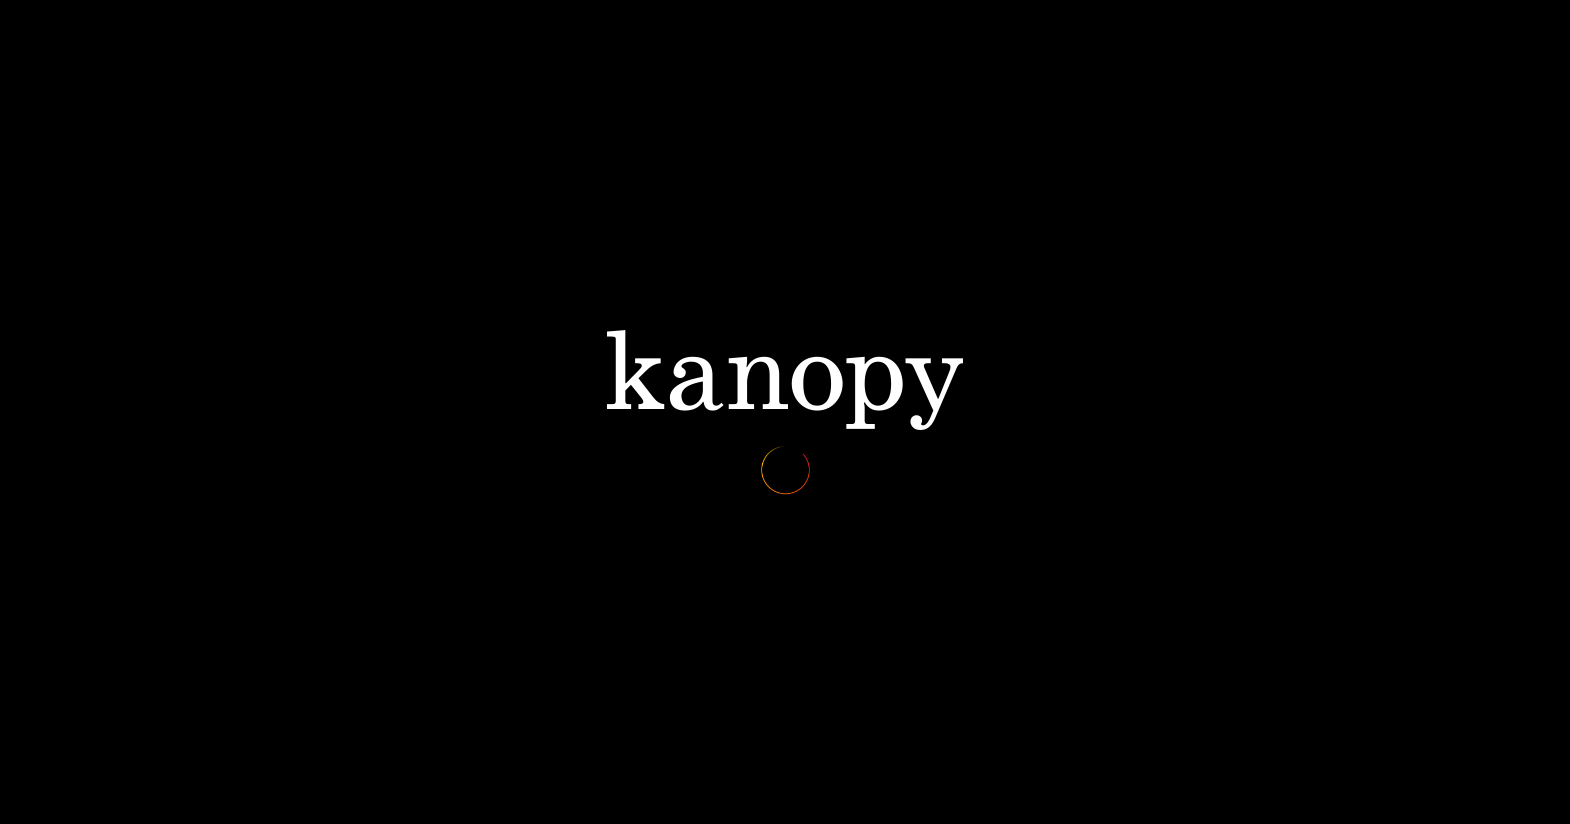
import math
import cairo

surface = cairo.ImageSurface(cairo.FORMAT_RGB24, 1570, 824)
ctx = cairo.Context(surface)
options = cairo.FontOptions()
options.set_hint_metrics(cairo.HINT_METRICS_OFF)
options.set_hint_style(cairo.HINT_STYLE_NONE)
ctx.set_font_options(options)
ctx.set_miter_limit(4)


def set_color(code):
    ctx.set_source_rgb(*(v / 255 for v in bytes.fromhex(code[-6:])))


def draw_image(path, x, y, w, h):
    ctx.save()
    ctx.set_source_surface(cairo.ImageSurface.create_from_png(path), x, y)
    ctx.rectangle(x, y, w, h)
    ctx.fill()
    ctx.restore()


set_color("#000000")
ctx.paint()
draw_image("assets/img1.png", 607, 330, 356, 100)
draw_image("assets/img2.png", 761, 446, 49, 49)
surface.write_to_png("output.png")
